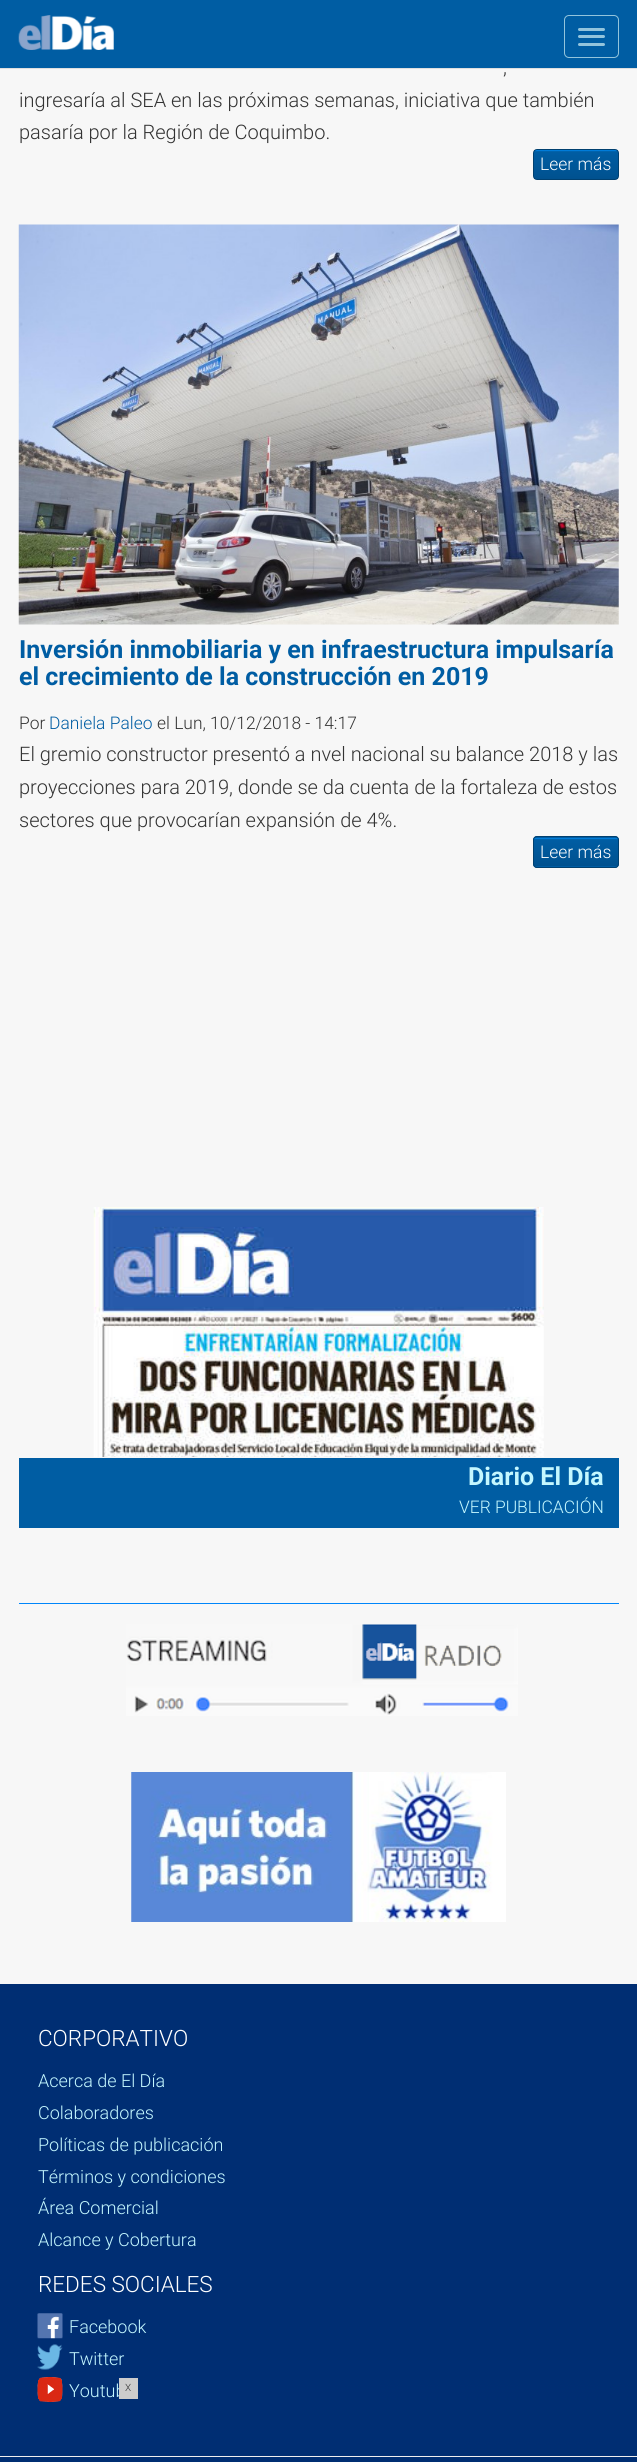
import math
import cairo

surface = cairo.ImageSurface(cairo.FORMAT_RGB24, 637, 2462)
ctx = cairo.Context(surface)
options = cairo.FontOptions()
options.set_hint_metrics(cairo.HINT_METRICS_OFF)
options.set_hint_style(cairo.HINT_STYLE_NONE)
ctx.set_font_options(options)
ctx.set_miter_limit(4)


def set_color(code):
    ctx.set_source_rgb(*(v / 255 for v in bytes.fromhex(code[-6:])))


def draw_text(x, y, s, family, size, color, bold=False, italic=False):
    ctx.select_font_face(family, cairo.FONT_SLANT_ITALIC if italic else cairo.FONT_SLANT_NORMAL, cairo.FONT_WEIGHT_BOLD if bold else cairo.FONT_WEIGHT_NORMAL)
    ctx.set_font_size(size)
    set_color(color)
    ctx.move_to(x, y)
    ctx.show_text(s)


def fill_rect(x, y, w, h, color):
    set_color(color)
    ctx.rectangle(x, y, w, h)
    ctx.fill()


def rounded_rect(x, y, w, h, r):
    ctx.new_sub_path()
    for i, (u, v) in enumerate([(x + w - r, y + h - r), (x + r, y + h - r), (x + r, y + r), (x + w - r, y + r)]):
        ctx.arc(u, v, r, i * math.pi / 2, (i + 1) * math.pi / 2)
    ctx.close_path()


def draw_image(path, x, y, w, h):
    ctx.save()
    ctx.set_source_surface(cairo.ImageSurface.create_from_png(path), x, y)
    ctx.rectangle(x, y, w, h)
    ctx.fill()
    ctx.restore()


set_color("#f7f7f7")
ctx.paint()
fill_rect(0, 68, 637, 1, "#dfdfdf")
fill_rect(0, 0, 637, 68, "#005da3")
draw_image("assets/img1.png", 18, 15, 96, 35)
rounded_rect(564.5, 15.5, 54, 42, 4.5)
set_color("#93c4dc")
ctx.set_line_width(1)
ctx.stroke()
rounded_rect(578, 28, 27, 3, 1.5)
ctx.fill()
rounded_rect(578, 35, 27, 3, 1.5)
ctx.fill()
rounded_rect(578, 43, 27, 3, 1.5)
ctx.fill()
draw_text(503, 74, ",", "Roboto Light", 20, "#333333")
draw_text(19, 107, "ingresaría al SEA en las próximas semanas, iniciativa que también", "Roboto Light", 20, "#333333")
draw_text(19, 139, "pasaría por la Región de Coquimbo.", "Roboto Light", 20, "#333333")
ctx.save()
rounded_rect(533, 149, 86, 31, 4)
ctx.clip()
gradient = cairo.LinearGradient(576, 150, 576, 179)
gradient.add_color_stop_rgba(0, 0, 0.537, 0.937, 1)
gradient.add_color_stop_rgba(0.06, 0, 0.365, 0.639, 1)
gradient.add_color_stop_rgba(1, 0, 0.318, 0.561, 1)
ctx.set_source(gradient)
ctx.rectangle(534, 150, 84, 29)
ctx.fill()
ctx.restore()
rounded_rect(533.5, 149.5, 85, 30, 3.5)
set_color("#004070")
ctx.stroke()
draw_text(540, 170, "Leer más", "Roboto Light", 17.5, "#ffffff")
draw_image("assets/img2.png", 18, 224, 601, 401)
draw_text(19, 658, "Inversión inmobiliaria y en infraestructura impulsaría", "Roboto", 25, "#005da3", bold=True)
draw_text(19, 685, "el crecimiento de la construcción en 2019", "Roboto", 25, "#005da3", bold=True)
draw_text(19, 729, "Por", "Roboto Light", 17.4, "#333333")
draw_text(49, 729, "Daniela Paleo", "Roboto Light", 17.4, "#005da3")
draw_text(157, 729, "el Lun, 10/12/2018 - 14:17", "Roboto Light", 17.4, "#333333")
draw_text(19, 761, "El gremio constructor presentó a nvel nacional su balance 2018 y las", "Roboto Light", 20, "#333333")
draw_text(19, 794, "proyecciones para 2019, donde se da cuenta de la fortaleza de estos", "Roboto Light", 20, "#333333")
draw_text(19, 827, "sectores que provocarían expansión de 4%.", "Roboto Light", 20, "#333333")
set_color("#005da3")
rounded_rect(533, 836, 86, 32, 4)
ctx.fill()
gradient = cairo.LinearGradient(576, 838, 576, 866)
gradient.add_color_stop_rgba(0, 0, 0.537, 0.937, 1)
gradient.add_color_stop_rgba(0.06, 0, 0.365, 0.639, 1)
gradient.add_color_stop_rgba(1, 0, 0.318, 0.561, 1)
ctx.set_source(gradient)
ctx.rectangle(534, 838, 84, 28)
ctx.fill()
rounded_rect(533.5, 836.5, 85, 31, 3.5)
set_color("#004070")
ctx.stroke()
draw_text(540, 858, "Leer más", "Roboto Light", 17.5, "#ffffff")
draw_image("assets/img3.png", 93, 1207, 451, 250)
fill_rect(19, 1458, 600, 70, "#005da3")
draw_text(468, 1485, "Diario El Día", "Roboto", 25, "#c4f7ff", bold=True)
draw_text(459, 1513, "VER PUBLICACIÓN", "Roboto Light", 17.4, "#c4f7ff")
fill_rect(19, 1603, 600, 1, "#0086fa")
draw_image("assets/img4.png", 126, 1624, 392, 92)
draw_image("assets/img5.png", 131, 1772, 375, 150)
fill_rect(0, 1984, 637, 478, "#002e73")
draw_text(38, 2046, "CORPORATIVO", "Roboto Light", 22.5, "#ffffff")
draw_text(38, 2087, "Acerca de El Día", "Roboto Light", 18, "#c4f7ff")
draw_text(38, 2119, "Colaboradores", "Roboto Light", 18, "#c4f7ff")
draw_text(38, 2151, "Políticas de publicación", "Roboto Light", 18, "#c4f7ff")
draw_text(38, 2183, "Términos y condiciones", "Roboto Light", 18, "#c4f7ff")
draw_text(38, 2214, "Área Comercial", "Roboto Light", 18, "#c4f7ff")
draw_text(38, 2246, "Alcance y Cobertura", "Roboto Light", 18, "#c4f7ff")
draw_text(38, 2292, "REDES SOCIALES", "Roboto Light", 22.5, "#ffffff")
draw_image("assets/img6.png", 37, 2313, 26, 26)
draw_text(69, 2333, "Facebook", "Roboto Light", 18, "#c4f7ff")
draw_image("assets/img7.png", 37, 2344, 26, 26)
draw_text(69, 2365, "Twitter", "Roboto Light", 18, "#c4f7ff")
draw_image("assets/img8.png", 37, 2377, 26, 25)
draw_text(69, 2397, "Youtub", "Roboto Light", 18, "#c4f7ff")
fill_rect(0, 2456, 637, 1, "#eeeeee")
fill_rect(119, 2378, 19, 21, "#cccccc")
draw_text(125, 2391, "X", "Roboto Light", 10, "#333333")
surface.write_to_png("output.png")
